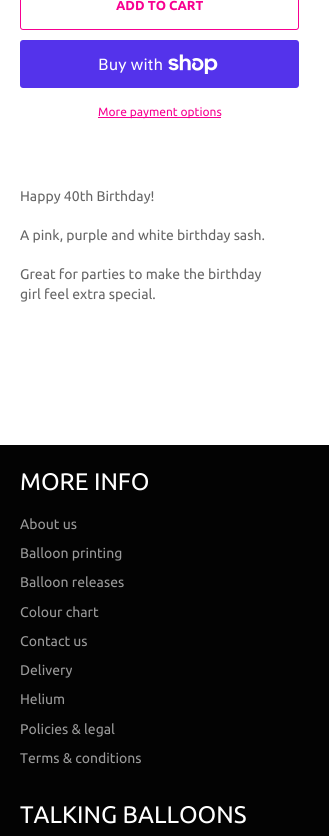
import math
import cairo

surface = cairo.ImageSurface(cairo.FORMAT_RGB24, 329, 836)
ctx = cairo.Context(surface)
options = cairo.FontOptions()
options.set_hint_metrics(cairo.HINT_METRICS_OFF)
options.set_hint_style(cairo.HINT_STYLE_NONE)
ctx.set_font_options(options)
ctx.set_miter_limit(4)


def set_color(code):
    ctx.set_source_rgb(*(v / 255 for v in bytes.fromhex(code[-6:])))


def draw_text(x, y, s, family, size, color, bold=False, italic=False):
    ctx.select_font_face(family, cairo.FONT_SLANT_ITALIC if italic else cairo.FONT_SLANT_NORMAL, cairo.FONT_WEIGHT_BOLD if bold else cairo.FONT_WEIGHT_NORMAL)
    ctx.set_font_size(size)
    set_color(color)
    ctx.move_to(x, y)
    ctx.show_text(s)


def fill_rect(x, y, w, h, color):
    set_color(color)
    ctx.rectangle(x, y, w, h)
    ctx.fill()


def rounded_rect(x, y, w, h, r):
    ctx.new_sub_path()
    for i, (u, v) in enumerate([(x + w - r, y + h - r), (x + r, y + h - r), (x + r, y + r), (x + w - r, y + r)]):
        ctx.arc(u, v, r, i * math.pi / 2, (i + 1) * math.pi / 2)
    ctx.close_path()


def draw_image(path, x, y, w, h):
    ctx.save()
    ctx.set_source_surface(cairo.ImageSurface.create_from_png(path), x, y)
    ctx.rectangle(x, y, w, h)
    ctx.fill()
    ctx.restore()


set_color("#ffffff")
ctx.paint()
rounded_rect(20.5, -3.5, 278, 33, 2.5)
set_color("#f70091")
ctx.set_line_width(1)
ctx.stroke()
draw_text(116, 10, "ADD TO CART", "Ubuntu", 13, "#f70091", bold=True)
set_color("#5433eb")
rounded_rect(20, 40, 279, 48, 3)
ctx.fill()
draw_text(98, 70, "Buy with", "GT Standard", 16, "#ffffff")
draw_image("assets/img1.png", 168, 54, 50, 20)
fill_rect(98, 117, 123, 1, "#f70091")
draw_text(98, 116, "More payment options", "Ubuntu", 12, "#f70091")
draw_text(20, 201, "Happy 40th Birthday!", "Ubuntu", 14, "#666666")
draw_text(20, 240, "A pink, purple and white birthday sash.", "Ubuntu", 14, "#666666")
draw_text(20, 279, "Great for parties to make the birthday", "Ubuntu", 14, "#666666")
draw_text(20, 299, "girl feel extra special.", "Ubuntu", 14, "#666666")
fill_rect(0, 445, 329, 391, "#030303")
draw_text(20, 490, "MORE INFO", "Ubuntu", 24, "#ffffff")
draw_text(20, 529, "About us", "Ubuntu", 14, "#9a9a9a")
draw_text(20, 558, "Balloon printing", "Ubuntu", 14, "#9a9a9a")
draw_text(20, 587, "Balloon releases", "Ubuntu", 14, "#9a9a9a")
draw_text(20, 617, "Colour chart", "Ubuntu", 14, "#9a9a9a")
draw_text(20, 646, "Contact us", "Ubuntu", 14, "#9a9a9a")
draw_text(20, 675, "Delivery", "Ubuntu", 14, "#9a9a9a")
draw_text(20, 704, "Helium", "Ubuntu", 14, "#9a9a9a")
draw_text(20, 734, "Policies & legal", "Ubuntu", 14, "#9a9a9a")
draw_text(20, 763, "Terms & conditions", "Ubuntu", 14, "#9a9a9a")
draw_text(20, 823, "TALKING BALLOONS", "Ubuntu", 24, "#ffffff")
surface.write_to_png("output.png")
